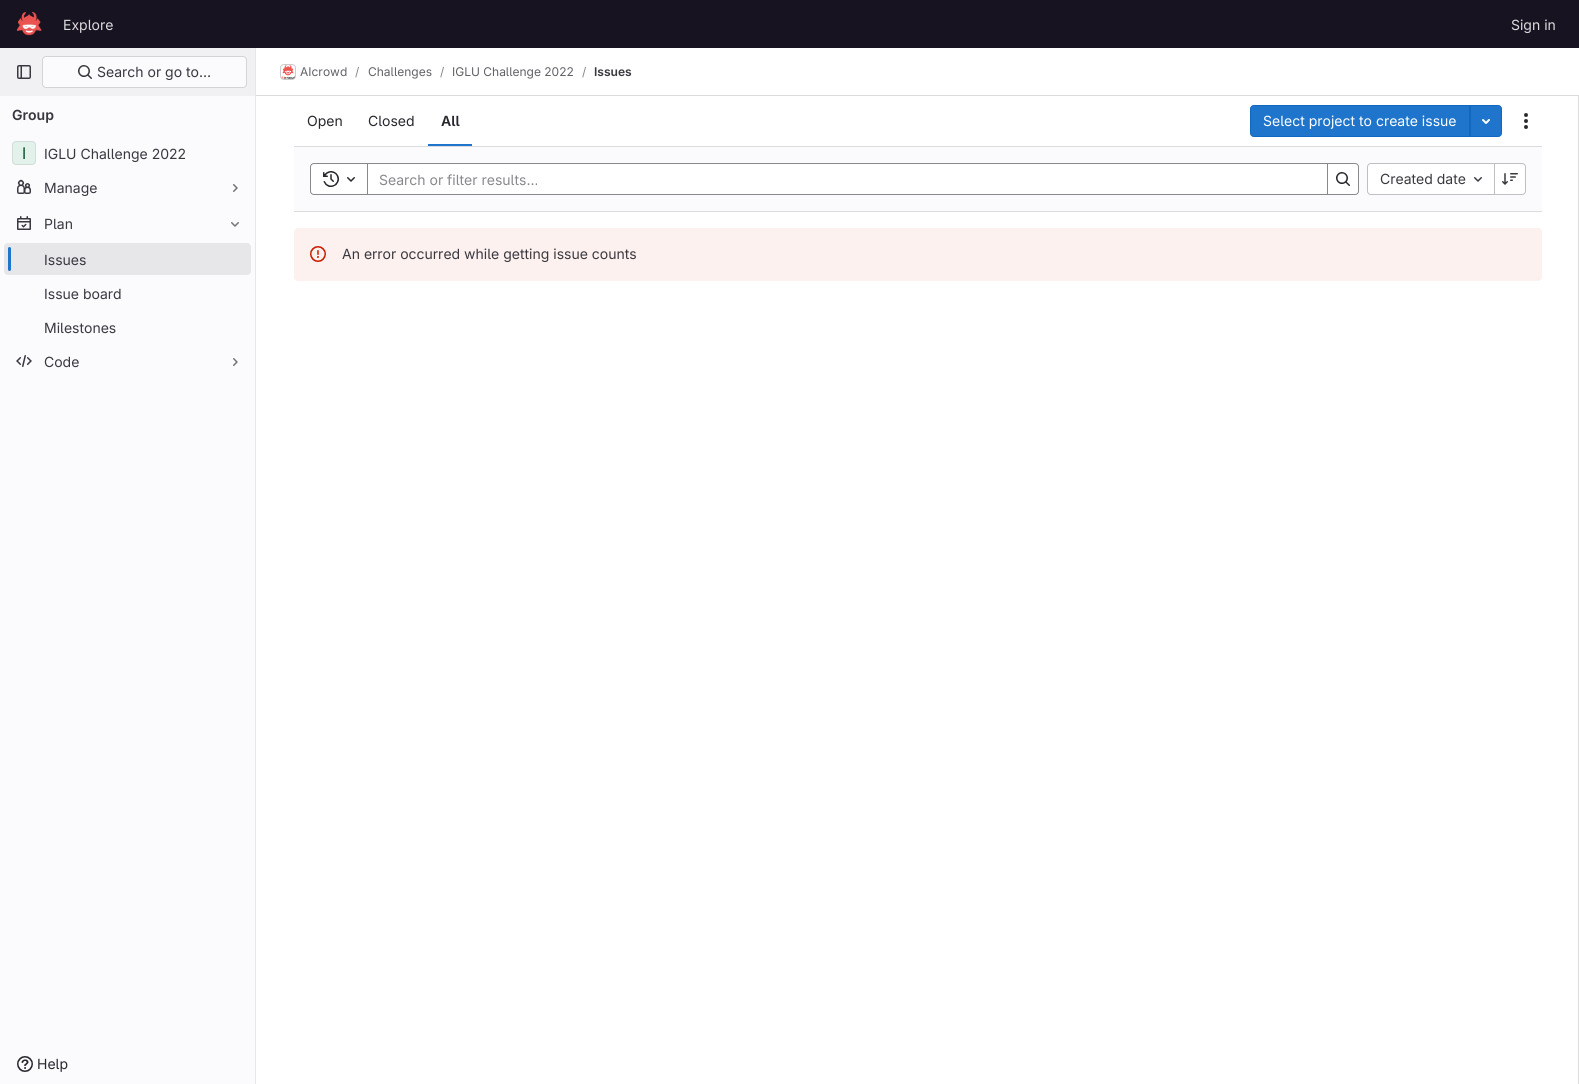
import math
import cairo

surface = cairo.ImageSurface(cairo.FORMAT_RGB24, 1579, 1084)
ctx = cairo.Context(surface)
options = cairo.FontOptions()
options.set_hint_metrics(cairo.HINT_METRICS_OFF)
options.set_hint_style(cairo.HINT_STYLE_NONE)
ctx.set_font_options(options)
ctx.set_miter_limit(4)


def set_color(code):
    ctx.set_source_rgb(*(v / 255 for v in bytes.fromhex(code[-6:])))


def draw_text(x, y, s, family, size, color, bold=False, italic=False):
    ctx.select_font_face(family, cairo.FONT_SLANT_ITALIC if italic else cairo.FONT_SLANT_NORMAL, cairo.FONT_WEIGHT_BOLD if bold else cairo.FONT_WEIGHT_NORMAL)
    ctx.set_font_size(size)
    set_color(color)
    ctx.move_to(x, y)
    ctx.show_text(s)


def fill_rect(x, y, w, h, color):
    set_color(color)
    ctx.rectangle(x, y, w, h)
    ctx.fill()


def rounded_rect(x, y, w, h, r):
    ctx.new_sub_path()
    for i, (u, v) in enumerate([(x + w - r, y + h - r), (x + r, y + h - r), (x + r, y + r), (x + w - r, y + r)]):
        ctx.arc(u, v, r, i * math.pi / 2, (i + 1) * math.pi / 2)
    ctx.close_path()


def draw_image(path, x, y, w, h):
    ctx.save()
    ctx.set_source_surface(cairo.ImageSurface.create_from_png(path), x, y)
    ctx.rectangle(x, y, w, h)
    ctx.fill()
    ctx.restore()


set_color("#ffffff")
ctx.paint()
fill_rect(0, 0, 1579, 48, "#171321")
draw_image("assets/img1.png", 16, 12, 26, 24)
draw_text(63, 30, "Explore", "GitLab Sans", 14, "#dcdcde")
draw_text(1511, 30, "Sign in", "GitLab Sans", 14, "#dcdcde")
fill_rect(0, 96, 255, 988, "#fbfafd")
fill_rect(255, 48, 1, 1036, "#e7e6e9")
fill_rect(0, 48, 255, 48, "#f1f0f3")
draw_image("assets/img2.png", 17, 65, 14, 14)
set_color("#fbfafd")
rounded_rect(42, 56, 205, 32, 4)
ctx.fill()
rounded_rect(42.5, 56.5, 204, 31, 3.5)
ctx.set_source_rgba(0.02, 0.02, 0.024, 0.16)
ctx.set_line_width(1)
ctx.stroke()
draw_image("assets/img3.png", 78, 65, 14, 14)
draw_text(97, 77, "Search or go to…", "GitLab Sans", 14, "#3a383f")
draw_text(12, 120, "Group", "GitLab Sans SemiBold", 14, "#3a383f")
set_color("#e2f1e9")
rounded_rect(12, 141, 24, 24, 4)
ctx.fill()
rounded_rect(12.5, 141.5, 23, 23, 3.5)
ctx.set_source_rgba(0.02, 0.02, 0.024, 0.08)
ctx.stroke()
draw_text(22, 159, "I", "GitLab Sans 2", 16, "#0d532a")
draw_text(44, 159, "IGLU Challenge 2022", "GitLab Sans", 14, "#3a383f")
draw_image("assets/img4.png", 17, 179, 14, 15)
draw_text(44, 193, "Manage", "GitLab Sans", 14, "#3a383f")
draw_image("assets/img5.png", 233, 184, 5, 8)
draw_image("assets/img6.png", 17, 216, 14, 14)
draw_text(44, 229, "Plan", "GitLab Sans", 14, "#3a383f")
draw_image("assets/img7.png", 231, 222, 8, 5)
set_color("#e7e6e9")
rounded_rect(4, 243, 247, 32, 4)
ctx.fill()
set_color("#1f75cb")
rounded_rect(8, 247, 3, 24, 1.5)
ctx.fill()
draw_text(44, 265, "Issues", "GitLab Sans", 14, "#3a383f")
draw_text(44, 299, "Issue board", "GitLab Sans", 14, "#3a383f")
draw_text(44, 333, "Milestones", "GitLab Sans", 14, "#3a383f")
draw_image("assets/img8.png", 16, 355, 16, 12)
draw_text(44, 367, "Code", "GitLab Sans", 14, "#3a383f")
draw_image("assets/img9.png", 233, 358, 5, 8)
draw_image("assets/img10.png", 17, 1056, 16, 16)
draw_text(37, 1069, "Help", "GitLab Sans", 14, "#28272d")
fill_rect(256, 95, 1323, 1, "#dcdcde")
rounded_rect(280.5, 64.5, 15, 15, 3.5)
ctx.stroke()
draw_image("assets/img11.png", 281, 65, 14, 14)
rounded_rect(280.5, 64.5, 15, 15, 3.5)
ctx.set_source_rgba(0.02, 0.02, 0.024, 0.08)
ctx.stroke()
draw_text(300, 76, "AIcrowd", "GitLab Sans", 12, "#626168")
draw_text(355, 76, "/", "GitLab Sans", 12, "#89888d")
draw_text(368, 76, "Challenges", "GitLab Sans", 12, "#626168")
draw_text(440, 76, "/", "GitLab Sans", 12, "#89888d")
draw_text(452, 76, "IGLU Challenge 2022", "GitLab Sans", 12, "#626168")
draw_text(582, 76, "/", "GitLab Sans", 12, "#89888d")
draw_text(594, 76, "Issues", "GitLab Sans SemiBold", 12, "#3a383f")
fill_rect(294, 146, 1248, 1, "#dcdcde")
draw_text(307, 126, "Open", "GitLab Sans", 14, "#28272d")
draw_text(368, 126, "Closed", "GitLab Sans", 14, "#28272d")
draw_text(441, 126, "All", "GitLab Sans SemiBold", 14, "#28272d")
fill_rect(428, 144, 44, 2, "#1f75cb")
ctx.new_path()
ctx.move_to(1254, 105.5)
ctx.line_to(1469.5, 105.5)
ctx.line_to(1469.5, 136.5)
ctx.line_to(1254, 136.5)
ctx.curve_to(1252, 136.5, 1250.5, 135, 1250.5, 133)
ctx.line_to(1250.5, 109)
ctx.curve_to(1250.5, 107, 1252, 105.5, 1254, 105.5)
ctx.close_path()
ctx.fill_preserve()
set_color("#1068bf")
ctx.stroke()
draw_text(1263, 126, "Select project to create issue", "GitLab Sans", 14, "#ffffff")
set_color("#1f75cb")
ctx.new_path()
ctx.move_to(1470.5, 105.5)
ctx.line_to(1498, 105.5)
ctx.curve_to(1500, 105.5, 1501.5, 107, 1501.5, 109)
ctx.line_to(1501.5, 133)
ctx.curve_to(1501.5, 135, 1500, 136.5, 1498, 136.5)
ctx.line_to(1470.5, 136.5)
ctx.close_path()
ctx.fill_preserve()
set_color("#1068bf")
ctx.stroke()
draw_image("assets/img12.png", 1482, 119, 8, 5)
draw_image("assets/img13.png", 1524, 113, 4, 16)
fill_rect(1578, 96, 1, 988, "#dcdcde")
fill_rect(294, 147, 1248, 64, "#fbfafd")
fill_rect(294, 211, 1248, 1, "#dcdcde")
set_color("#ffffff")
ctx.rectangle(367.5, 163.5, 960, 31)
ctx.fill_preserve()
set_color("#89888d")
ctx.stroke()
set_color("#ffffff")
ctx.new_path()
ctx.move_to(314, 163.5)
ctx.line_to(367.5, 163.5)
ctx.line_to(367.5, 194.5)
ctx.line_to(314, 194.5)
ctx.curve_to(312, 194.5, 310.5, 193, 310.5, 191)
ctx.line_to(310.5, 167)
ctx.curve_to(310.5, 165, 312, 163.5, 314, 163.5)
ctx.close_path()
ctx.fill_preserve()
set_color("#89888d")
ctx.stroke()
draw_image("assets/img14.png", 323, 171, 16, 16)
draw_image("assets/img15.png", 347, 177, 8, 5)
draw_text(379, 185, "Search or filter results…", "GitLab Sans", 14, "#89888d")
set_color("#ffffff")
ctx.new_path()
ctx.move_to(1327.5, 163.5)
ctx.line_to(1355, 163.5)
ctx.curve_to(1357, 163.5, 1358.5, 165, 1358.5, 167)
ctx.line_to(1358.5, 191)
ctx.curve_to(1358.5, 193, 1357, 194.5, 1355, 194.5)
ctx.line_to(1327.5, 194.5)
ctx.close_path()
ctx.fill_preserve()
set_color("#89888d")
ctx.stroke()
draw_image("assets/img16.png", 1336, 172, 14, 14)
set_color("#ffffff")
ctx.new_path()
ctx.move_to(1371, 163.5)
ctx.line_to(1494.5, 163.5)
ctx.line_to(1494.5, 194.5)
ctx.line_to(1371, 194.5)
ctx.curve_to(1369, 194.5, 1367.5, 193, 1367.5, 191)
ctx.line_to(1367.5, 167)
ctx.curve_to(1367.5, 165, 1369, 163.5, 1371, 163.5)
ctx.close_path()
ctx.fill_preserve()
set_color("#bfbfc3")
ctx.stroke()
draw_text(1380, 184, "Created date", "GitLab Sans", 14, "#3a383f")
draw_image("assets/img17.png", 1474, 177, 8, 5)
set_color("#ffffff")
ctx.new_path()
ctx.move_to(1494.5, 163.5)
ctx.line_to(1522, 163.5)
ctx.curve_to(1524, 163.5, 1525.5, 165, 1525.5, 167)
ctx.line_to(1525.5, 191)
ctx.curve_to(1525.5, 193, 1524, 194.5, 1522, 194.5)
ctx.line_to(1494.5, 194.5)
ctx.close_path()
ctx.fill_preserve()
set_color("#bfbfc3")
ctx.stroke()
draw_image("assets/img18.png", 1502, 173, 16, 12)
set_color("#fcf1ef")
rounded_rect(294, 228, 1248, 53, 4)
ctx.fill()
draw_image("assets/img19.png", 310, 246, 16, 16)
draw_text(342, 259, "An error occurred while getting issue counts", "GitLab Sans", 14, "#3a383f")
surface.write_to_png("output.png")
